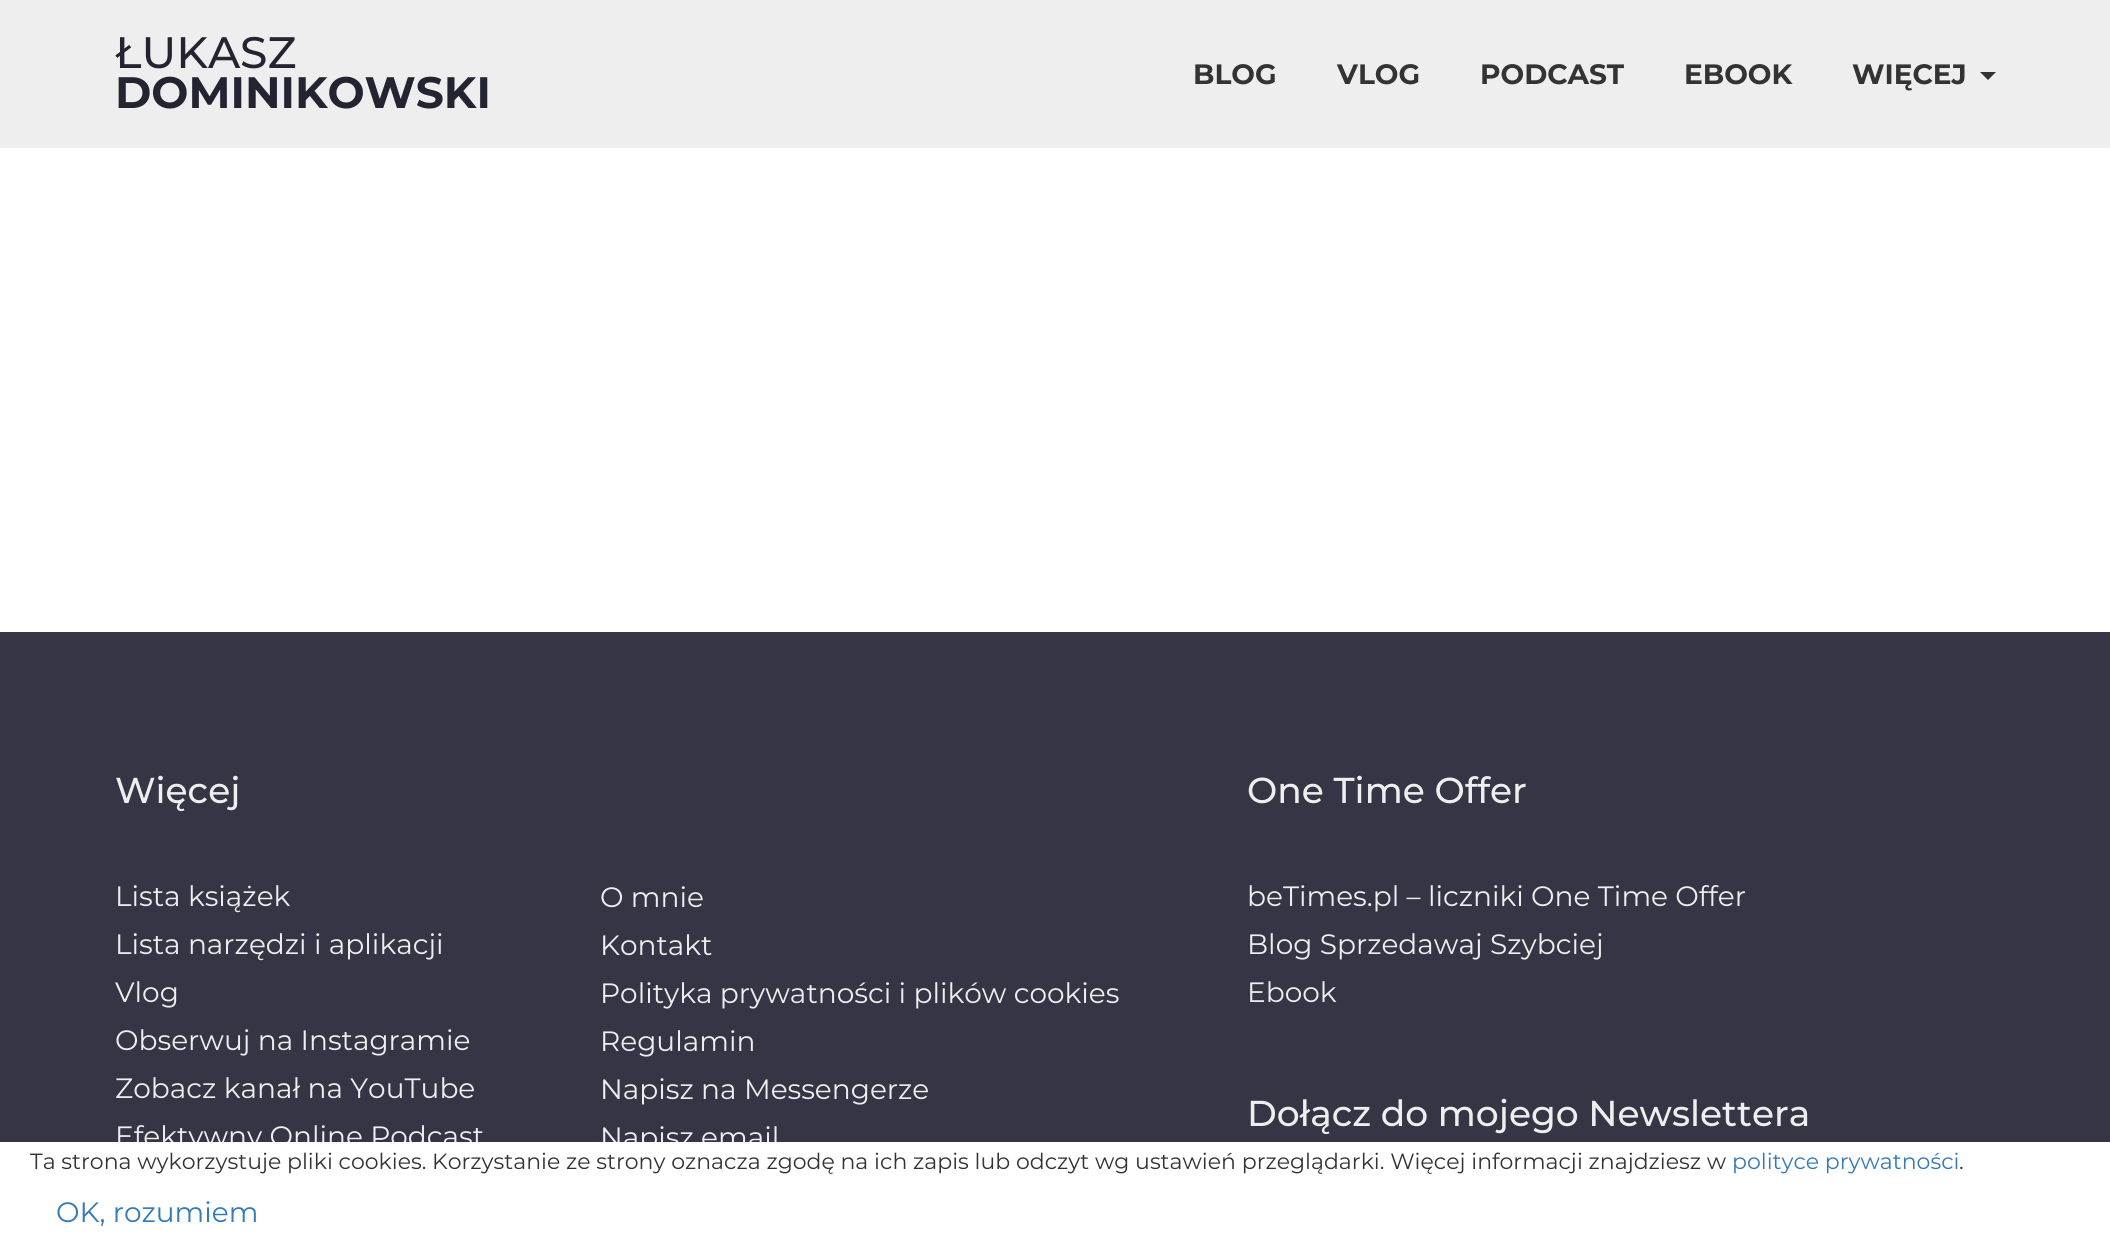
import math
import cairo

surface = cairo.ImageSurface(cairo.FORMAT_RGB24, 2110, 1249)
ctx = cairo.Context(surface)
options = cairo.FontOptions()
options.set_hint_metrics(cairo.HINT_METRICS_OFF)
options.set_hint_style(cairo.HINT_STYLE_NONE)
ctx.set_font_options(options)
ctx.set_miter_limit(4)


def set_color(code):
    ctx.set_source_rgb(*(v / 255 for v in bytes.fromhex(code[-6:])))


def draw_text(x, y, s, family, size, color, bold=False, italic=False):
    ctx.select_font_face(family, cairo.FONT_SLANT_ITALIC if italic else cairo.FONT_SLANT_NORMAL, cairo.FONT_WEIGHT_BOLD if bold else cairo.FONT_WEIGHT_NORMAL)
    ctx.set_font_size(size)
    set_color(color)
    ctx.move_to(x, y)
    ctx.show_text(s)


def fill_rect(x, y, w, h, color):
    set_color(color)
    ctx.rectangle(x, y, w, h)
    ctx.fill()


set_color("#ffffff")
ctx.paint()
fill_rect(0, 0, 2110, 148, "#eeeeee")
draw_text(115, 68, "ŁUKASZ", "Montserrat Medium", 44, "#242332")
draw_text(115, 108, "DOMINIKOWSKI", "Montserrat", 44, "#242332", bold=True)
draw_text(1193, 84, "BLOG", "Montserrat", 28, "#333333", bold=True)
draw_text(1337, 84, "VLOG", "Montserrat", 28, "#333333", bold=True)
draw_text(1480, 84, "PODCAST", "Montserrat", 28, "#333333", bold=True)
draw_text(1684, 84, "EBOOK", "Montserrat", 28, "#333333", bold=True)
draw_text(1852, 84, "WIĘCEJ", "Montserrat", 28, "#333333", bold=True)
ctx.new_path()
ctx.move_to(1980, 72)
ctx.line_to(1996, 72)
ctx.line_to(1988, 80)
ctx.close_path()
ctx.fill()
fill_rect(0, 632, 2110, 510, "#363545")
draw_text(115, 803, "Więcej", "Montserrat Medium", 36, "#eeeeee")
draw_text(115, 906, "Lista książek", "Montserrat", 28, "#eeeeee")
draw_text(115, 954, "Lista narzędzi i aplikacji", "Montserrat", 28, "#eeeeee")
draw_text(115, 1002, "Vlog", "Montserrat", 28, "#eeeeee")
draw_text(115, 1050, "Obserwuj na Instagramie", "Montserrat", 28, "#eeeeee")
draw_text(115, 1098, "Zobacz kanał na YouTube", "Montserrat", 28, "#eeeeee")
draw_text(115, 1146, "Efektywny Online Podcast", "Montserrat", 28, "#eeeeee")
draw_text(600, 907, "O mnie", "Montserrat", 28, "#eeeeee")
draw_text(600, 955, "Kontakt", "Montserrat", 28, "#eeeeee")
draw_text(600, 1003, "Polityka prywatności i plików cookies", "Montserrat", 28, "#eeeeee")
draw_text(600, 1051, "Regulamin", "Montserrat", 28, "#eeeeee")
draw_text(600, 1099, "Napisz na Messengerze", "Montserrat", 28, "#eeeeee")
draw_text(600, 1147, "Napisz email", "Montserrat", 28, "#eeeeee")
draw_text(1247, 803, "One Time Offer", "Montserrat Medium", 36, "#eeeeee")
draw_text(1247, 906, "beTimes.pl – liczniki One Time Offer", "Montserrat", 28, "#eeeeee")
draw_text(1247, 954, "Blog Sprzedawaj Szybciej", "Montserrat", 28, "#eeeeee")
draw_text(1247, 1002, "Ebook", "Montserrat", 28, "#eeeeee")
draw_text(1247, 1126, "Dołącz do mojego Newslettera", "Montserrat Medium", 36, "#eeeeee")
fill_rect(118, 1142, 659, 11, "#ffffff")
draw_text(30, 1169, "Ta strona wykorzystuje pliki cookies. Korzystanie ze strony oznacza zgodę na ich zapis lub odczyt wg ustawień przeglądarki. Więcej informacji znajdziesz w", "Montserrat", 22, "#333333")
draw_text(1732, 1169, "polityce prywatności", "Montserrat", 22, "#337ab7")
draw_text(1959, 1169, ".", "Montserrat", 22, "#333333")
draw_text(56, 1222, "OK, rozumiem", "Montserrat", 28, "#337ab7")
surface.write_to_png("output.png")
